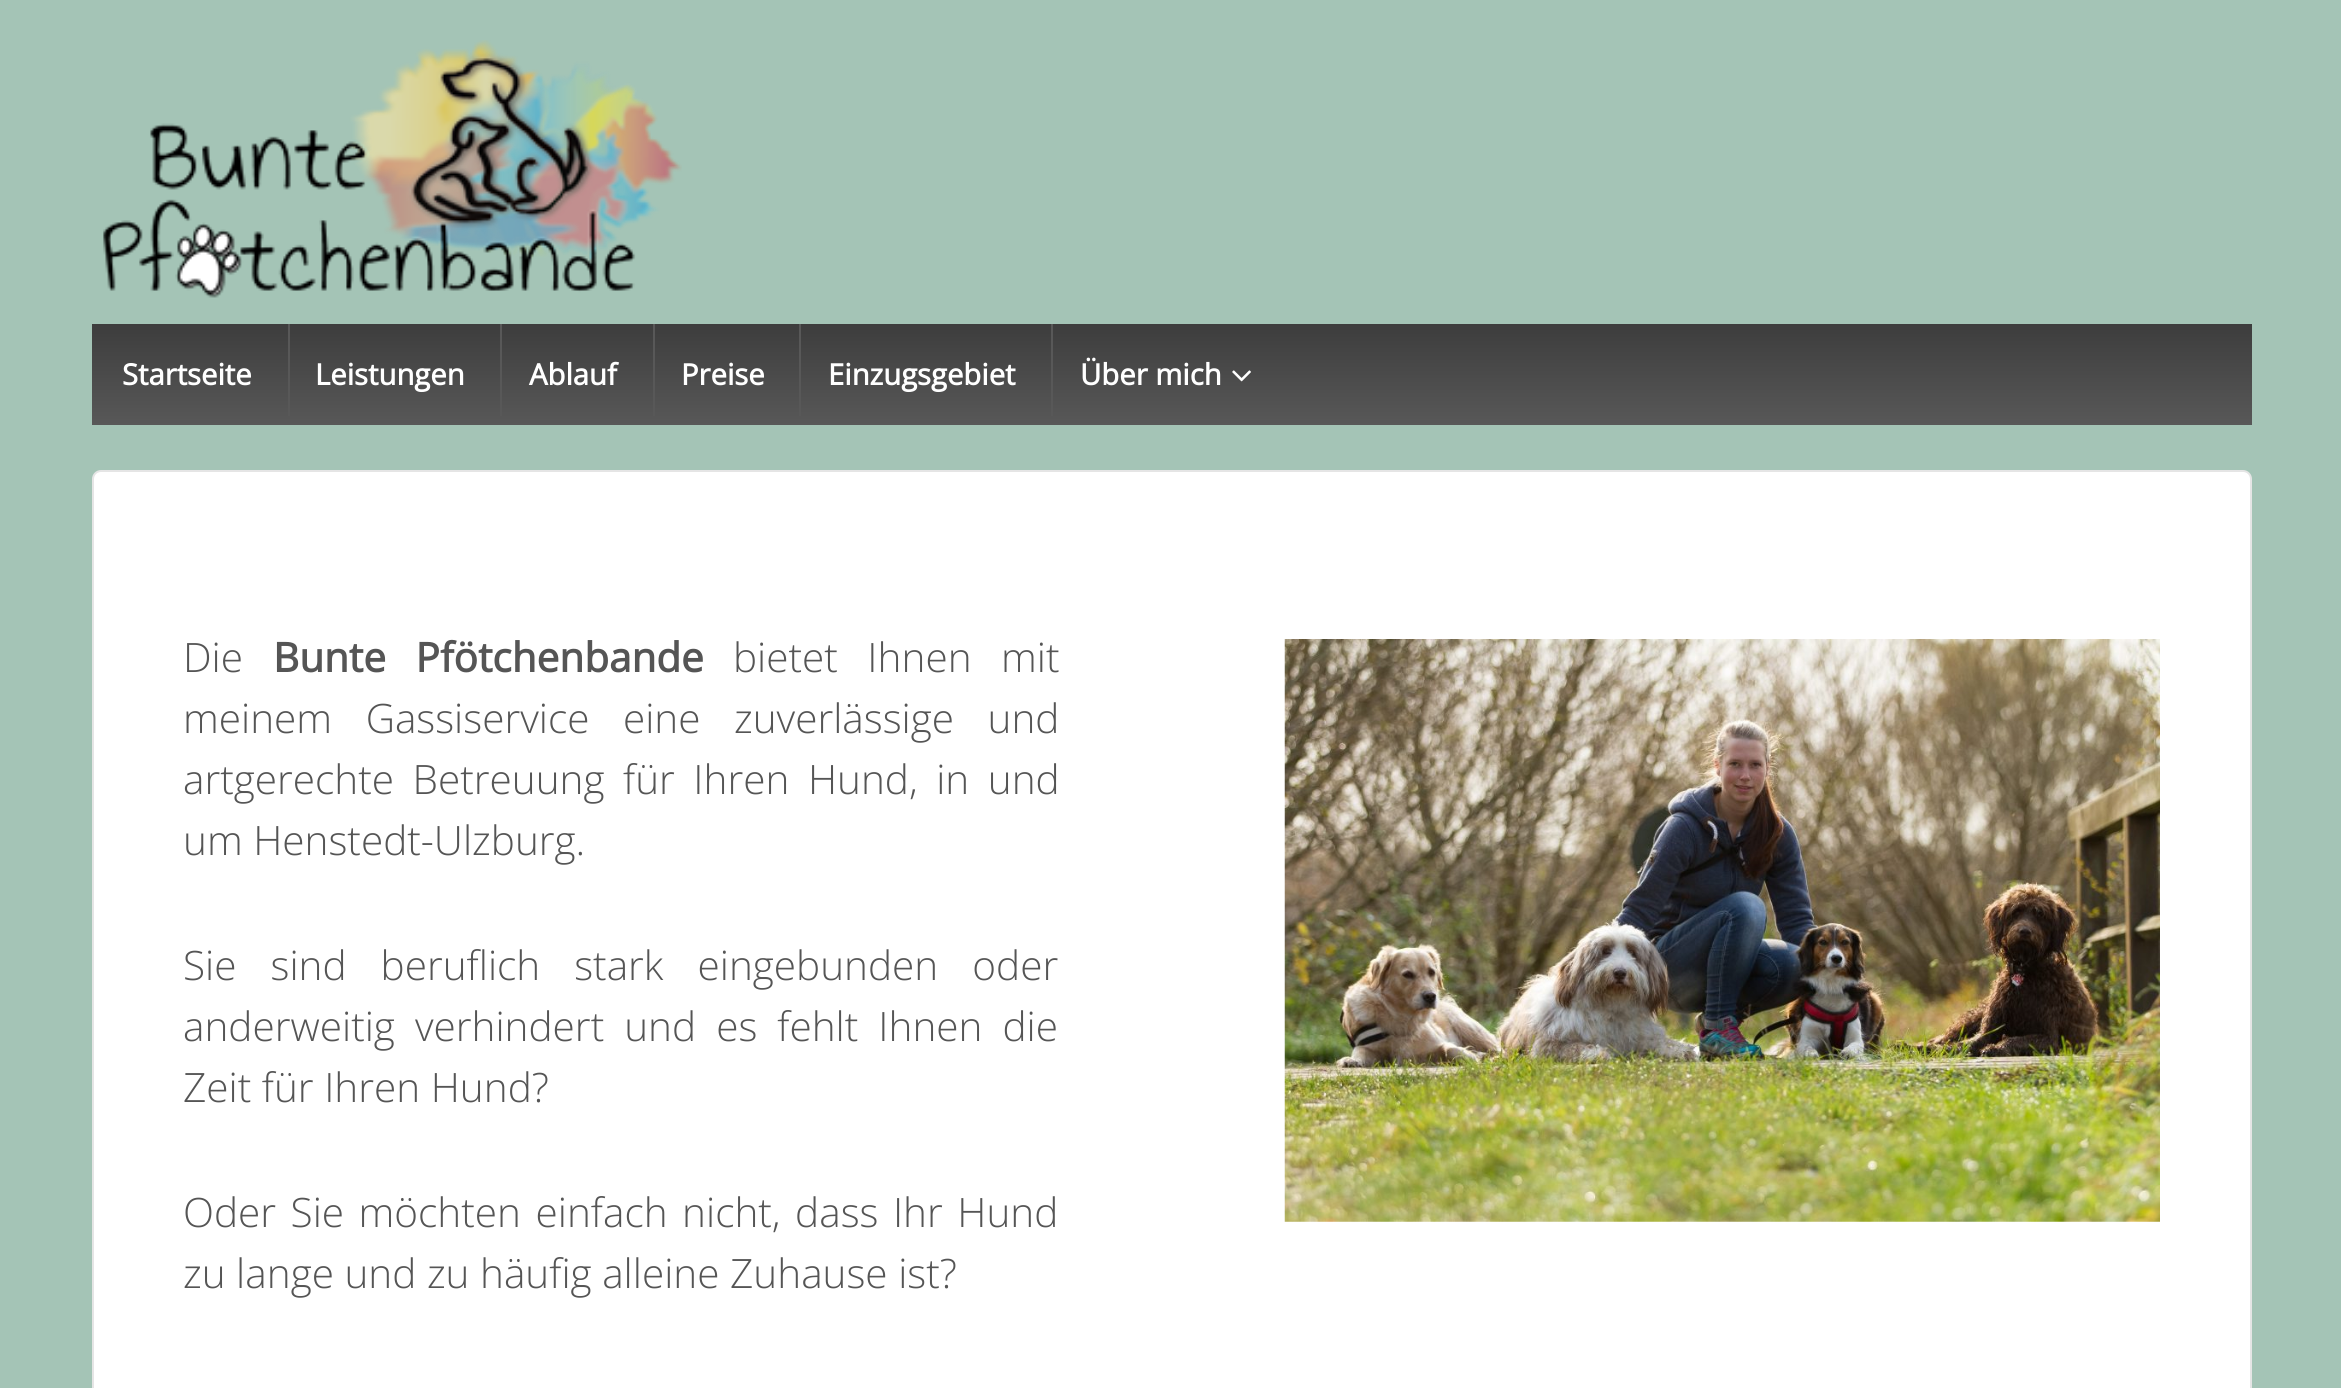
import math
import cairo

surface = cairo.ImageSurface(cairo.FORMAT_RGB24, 2341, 1388)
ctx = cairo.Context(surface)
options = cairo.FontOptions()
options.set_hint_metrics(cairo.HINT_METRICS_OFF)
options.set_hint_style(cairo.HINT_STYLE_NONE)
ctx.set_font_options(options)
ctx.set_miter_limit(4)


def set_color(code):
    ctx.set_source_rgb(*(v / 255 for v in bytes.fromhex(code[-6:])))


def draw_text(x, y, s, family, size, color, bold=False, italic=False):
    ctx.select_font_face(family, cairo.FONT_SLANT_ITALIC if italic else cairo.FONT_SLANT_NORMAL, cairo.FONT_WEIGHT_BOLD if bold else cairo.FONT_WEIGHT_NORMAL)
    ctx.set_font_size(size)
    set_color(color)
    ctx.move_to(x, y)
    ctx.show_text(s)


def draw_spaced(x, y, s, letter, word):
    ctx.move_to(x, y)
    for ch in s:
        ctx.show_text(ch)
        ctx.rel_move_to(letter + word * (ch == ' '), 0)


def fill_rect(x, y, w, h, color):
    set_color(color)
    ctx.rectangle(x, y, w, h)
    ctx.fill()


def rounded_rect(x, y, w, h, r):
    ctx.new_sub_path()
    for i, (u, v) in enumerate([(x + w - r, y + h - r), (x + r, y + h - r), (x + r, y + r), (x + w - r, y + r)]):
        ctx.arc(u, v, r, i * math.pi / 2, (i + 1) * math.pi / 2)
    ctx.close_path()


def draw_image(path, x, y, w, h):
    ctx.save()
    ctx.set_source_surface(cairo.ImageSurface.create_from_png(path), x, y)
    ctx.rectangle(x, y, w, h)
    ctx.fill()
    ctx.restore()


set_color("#a4c4b6")
ctx.paint()
draw_image("assets/img1.png", 103, 40, 579, 258)
gradient = cairo.LinearGradient(1172, 425, 1172, 324)
gradient.add_color_stop_rgba(0, 0.345, 0.345, 0.345, 1)
gradient.add_color_stop_rgba(1, 0.239, 0.239, 0.239, 1)
ctx.set_source(gradient)
ctx.rectangle(92, 324, 2160, 101)
ctx.fill()
draw_text(122, 385, "Startseite", "Open Sans", 29.25, "#ffffff", bold=True)
fill_rect(288, 324, 2, 92, "#585858")
draw_text(315, 385, "Leistungen", "Open Sans", 29.25, "#ffffff", bold=True)
fill_rect(500, 324, 2, 92, "#585858")
draw_text(529, 385, "Ablauf", "Open Sans", 29.25, "#ffffff", bold=True)
fill_rect(653, 324, 2, 92, "#585858")
draw_text(681, 385, "Preise", "Open Sans", 29.25, "#ffffff", bold=True)
fill_rect(799, 324, 2, 92, "#585858")
draw_text(828, 385, "Einzugsgebiet", "Open Sans", 29.25, "#ffffff", bold=True)
fill_rect(1051, 324, 2, 92, "#585858")
draw_text(1080, 385, "Über mich", "Open Sans", 29.25, "#ffffff", bold=True)
draw_image("assets/img2.png", 1232, 370, 19, 12)
rounded_rect(93, 471, 2158, 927, 8)
ctx.fill_preserve()
set_color("#e5e5e5")
ctx.stroke()
draw_text(183, 672, "Die", "Open Sans Light", 40.5, "#555555")
ctx.select_font_face("Open Sans", cairo.FONT_SLANT_NORMAL, cairo.FONT_WEIGHT_BOLD)
draw_spaced(273, 672, "Bunte Pfötchenbande", 0, 19)
ctx.select_font_face("Open Sans Light")
draw_spaced(733, 672, "bietet Ihnen mit", 0, 19)
draw_spaced(183, 733, "meinem Gassiservice eine zuverlässige und", 0, 23)
draw_spaced(183, 794, "artgerechte Betreuung für Ihren Hund, in und", 0, 8)
draw_text(183, 855, "um Henstedt-Ulzburg.", "Open Sans Light", 40.5, "#555555")
draw_spaced(183, 980, "Sie sind beruflich stark eingebunden oder", 0, 23.5)
draw_spaced(183, 1041, "anderweitig verhindert und es fehlt Ihnen die", 0, 9.5)
draw_text(183, 1102, "Zeit für Ihren Hund?", "Open Sans Light", 40.5, "#555555")
draw_spaced(183, 1227, "Oder Sie möchten einfach nicht, dass Ihr Hund", 0, 4)
draw_text(183, 1288, "zu lange und zu häufig alleine Zuhause ist?", "Open Sans Light", 40.5, "#555555")
draw_image("assets/img3.png", 1284, 639, 876, 583)
surface.write_to_png("output.png")
